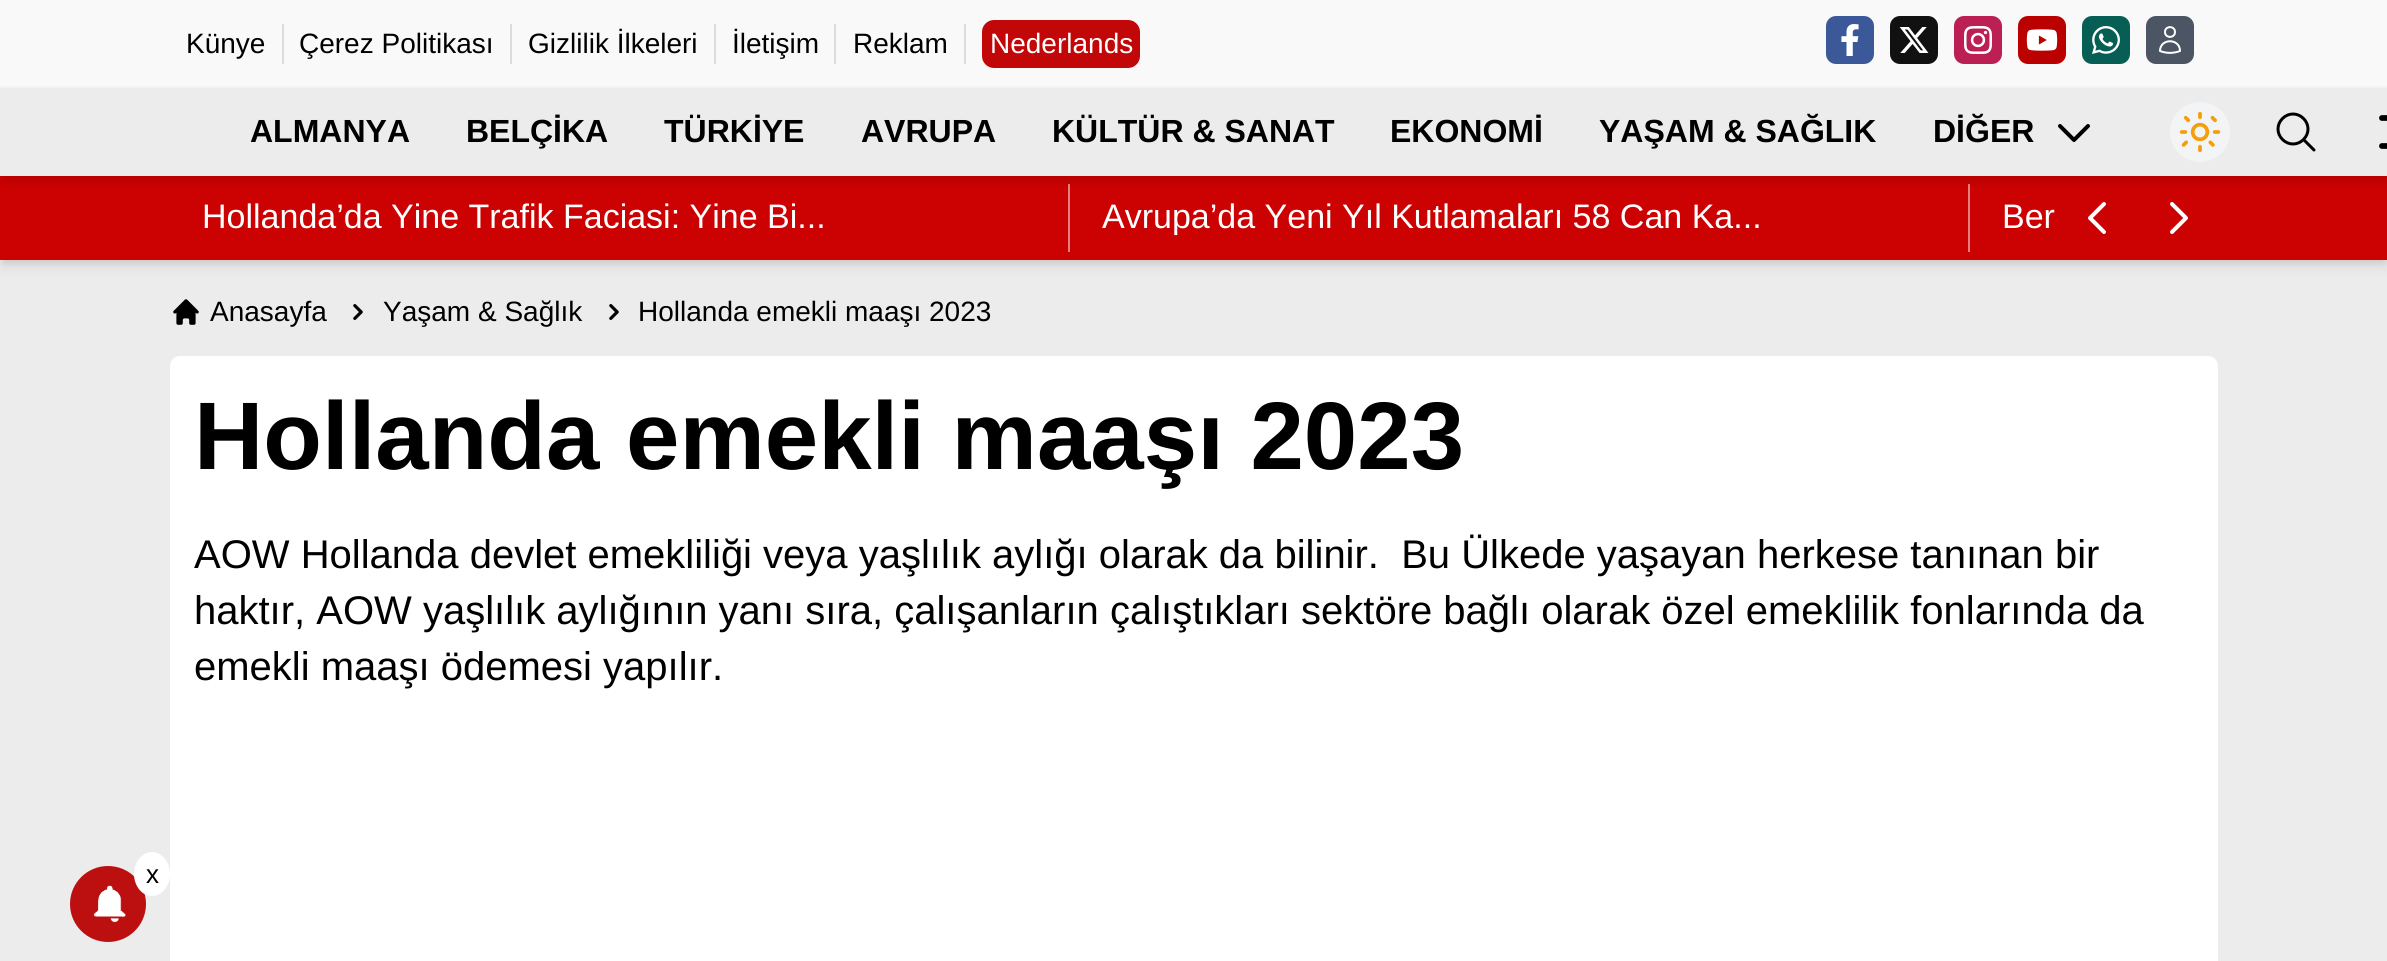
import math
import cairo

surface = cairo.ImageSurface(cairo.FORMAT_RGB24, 2387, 961)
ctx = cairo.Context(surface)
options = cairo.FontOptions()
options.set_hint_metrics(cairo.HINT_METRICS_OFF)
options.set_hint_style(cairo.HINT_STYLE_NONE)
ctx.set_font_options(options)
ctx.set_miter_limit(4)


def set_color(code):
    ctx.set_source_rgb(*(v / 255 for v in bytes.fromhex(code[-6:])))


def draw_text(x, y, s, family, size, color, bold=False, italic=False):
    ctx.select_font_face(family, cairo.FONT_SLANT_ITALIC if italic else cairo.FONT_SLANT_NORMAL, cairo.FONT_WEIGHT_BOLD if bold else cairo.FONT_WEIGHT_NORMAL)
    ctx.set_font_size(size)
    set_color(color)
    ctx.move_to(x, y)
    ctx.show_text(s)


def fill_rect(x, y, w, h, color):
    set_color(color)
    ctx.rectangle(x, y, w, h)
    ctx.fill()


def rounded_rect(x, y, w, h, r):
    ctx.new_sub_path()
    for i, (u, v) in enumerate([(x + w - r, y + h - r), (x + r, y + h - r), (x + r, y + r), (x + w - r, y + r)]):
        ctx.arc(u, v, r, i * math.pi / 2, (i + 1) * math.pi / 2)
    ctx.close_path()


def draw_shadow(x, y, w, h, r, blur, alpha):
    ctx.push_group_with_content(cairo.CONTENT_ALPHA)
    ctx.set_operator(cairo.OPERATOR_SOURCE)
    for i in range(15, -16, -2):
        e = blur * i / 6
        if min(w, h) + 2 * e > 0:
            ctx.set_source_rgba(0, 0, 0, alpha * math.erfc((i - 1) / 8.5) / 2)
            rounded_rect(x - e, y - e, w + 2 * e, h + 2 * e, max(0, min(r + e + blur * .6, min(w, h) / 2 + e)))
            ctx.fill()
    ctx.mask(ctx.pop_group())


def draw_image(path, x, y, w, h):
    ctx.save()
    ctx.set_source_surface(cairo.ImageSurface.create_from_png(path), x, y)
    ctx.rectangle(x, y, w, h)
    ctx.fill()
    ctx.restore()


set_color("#ececec")
ctx.paint()
fill_rect(0, 0, 2387, 86, "#f9f9f9")
fill_rect(0, 86, 2387, 2, "#f3f4f6")
draw_text(186, 53, "Künye", "Liberation Sans", 28, "#000000")
fill_rect(282, 24, 2, 40, "#dbdbdb")
draw_text(299, 53, "Çerez Politikası", "Liberation Sans", 28, "#000000")
fill_rect(510, 24, 2, 40, "#dbdbdb")
draw_text(528, 53, "Gizlilik İlkeleri", "Liberation Sans", 28, "#000000")
fill_rect(714, 24, 2, 40, "#dbdbdb")
draw_text(732, 53, "İletişim", "Liberation Sans", 28, "#000000")
fill_rect(834, 24, 2, 40, "#dbdbdb")
draw_text(853, 53, "Reklam", "Liberation Sans", 28, "#000000")
fill_rect(964, 24, 2, 40, "#dbdbdb")
set_color("#c10707")
rounded_rect(982, 20, 158, 48, 12)
ctx.fill()
draw_text(990, 53, "Nederlands", "Liberation Sans", 28, "#ffffff")
set_color("#3b5998")
rounded_rect(1826, 16, 48, 48, 10)
ctx.fill()
draw_image("assets/img1.png", 1841, 24, 18, 32)
set_color("#111111")
rounded_rect(1890, 16, 48, 48, 10)
ctx.fill()
draw_image("assets/img2.png", 1899, 27, 30, 26)
set_color("#bb1f54")
rounded_rect(1954, 16, 48, 48, 10)
ctx.fill()
draw_image("assets/img3.png", 1964, 26, 28, 28)
set_color("#bb0000")
rounded_rect(2018, 16, 48, 48, 10)
ctx.fill()
draw_image("assets/img4.png", 2026, 29, 32, 22)
set_color("#075e54")
rounded_rect(2082, 16, 48, 48, 10)
ctx.fill()
draw_image("assets/img5.png", 2092, 26, 28, 28)
set_color("#4b5563")
rounded_rect(2146, 16, 48, 48, 10)
ctx.fill()
ctx.new_path()
ctx.move_to(2175, 32)
ctx.curve_to(2175, 38.5, 2165, 38.5, 2165, 32)
ctx.curve_to(2165, 25.5, 2175, 25.5, 2175, 32)
ctx.close_path()
ctx.move_to(2160, 51)
ctx.curve_to(2160, 38, 2180, 38, 2180, 51)
ctx.curve_to(2173.5, 53.5, 2166.5, 53.5, 2160, 51)
ctx.close_path()
set_color("#ffffff")
ctx.set_line_cap(cairo.LINE_CAP_ROUND)
ctx.set_line_join(cairo.LINE_JOIN_ROUND)
ctx.stroke()
set_color("#000000")
draw_shadow(4, 184, 2380, 76, 0, 4, 0.1)
draw_shadow(2, 186, 2384, 80, 0, 6, 0.1)
fill_rect(0, 176, 2387, 84, "#cc0101")
fill_rect(1068, 184, 2, 68, "#e68080")
fill_rect(1968, 184, 2, 68, "#e68080")
ctx.save()
ctx.rectangle(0, 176, 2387, 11)
ctx.clip()
set_color("#000000")
draw_shadow(2, 98, 2384, 84, 0, 6, 0.1)
ctx.restore()
draw_text(250, 142, "ALMANYA", "Liberation Sans", 32, "#000000", bold=True)
draw_text(466, 142, "BELÇİKA", "Liberation Sans", 32, "#000000", bold=True)
draw_text(664, 142, "TÜRKİYE", "Liberation Sans", 32, "#000000", bold=True)
draw_text(861, 142, "AVRUPA", "Liberation Sans", 32, "#000000", bold=True)
draw_text(1052, 142, "KÜLTÜR & SANAT", "Liberation Sans", 32, "#000000", bold=True)
draw_text(1390, 142, "EKONOMİ", "Liberation Sans", 32, "#000000", bold=True)
draw_text(1599, 142, "YAŞAM & SAĞLIK", "Liberation Sans", 32, "#000000", bold=True)
draw_text(1933, 142, "DİĞER", "Liberation Sans", 32, "#000000", bold=True)
ctx.new_path()
ctx.move_to(2088, 126)
ctx.line_to(2074, 140)
ctx.line_to(2060, 126)
ctx.set_line_width(4)
ctx.stroke()
set_color("#f3f4f6")
ctx.arc(2200, 132, 30, 0, 2 * math.pi)
ctx.fill()
draw_image("assets/img6.png", 2179, 111, 42, 42)
ctx.new_path()
ctx.move_to(2314, 150)
ctx.line_to(2303.5, 139.5)
ctx.move_to(2303.5, 139.5)
ctx.curve_to(2309.5, 133.5, 2309.5, 124.5, 2303.5, 118.5)
ctx.curve_to(2297.5, 112.5, 2288.5, 112.5, 2282.5, 118.5)
ctx.curve_to(2276.5, 124.5, 2276.5, 133.5, 2282.5, 139.5)
ctx.curve_to(2288.5, 145.5, 2297.5, 145.5, 2303.5, 139.5)
ctx.close_path()
set_color("#000000")
ctx.set_line_width(3)
ctx.stroke()
ctx.new_path()
ctx.move_to(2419.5, 118)
ctx.line_to(2382, 118)
ctx.move_to(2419.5, 146)
ctx.line_to(2382, 146)
ctx.set_line_width(5.8)
ctx.stroke()
draw_text(202, 228, "Hollanda’da Yine Trafik Faciasi: Yine Bi...", "Liberation Sans", 34, "#ffffff")
draw_text(1102, 228, "Avrupa’da Yeni Yıl Kutlamaları 58 Can Ka...", "Liberation Sans", 34, "#ffffff")
draw_text(2002, 228, "Ber", "Liberation Sans", 34, "#ffffff")
ctx.new_path()
ctx.move_to(2104, 232)
ctx.line_to(2090, 218)
ctx.line_to(2104, 204)
ctx.set_line_width(4)
ctx.stroke()
ctx.new_path()
ctx.move_to(2172, 204)
ctx.line_to(2186, 218)
ctx.line_to(2172, 232)
ctx.stroke()
draw_image("assets/img7.png", 173, 299, 26, 26)
draw_text(210, 321, "Anasayfa", "Liberation Sans", 28, "#000000")
draw_image("assets/img8.png", 353, 304, 10, 16)
draw_text(383, 321, "Yaşam & Sağlık", "Liberation Sans", 28, "#000000")
draw_image("assets/img8.png", 609, 304, 10, 16)
draw_text(638, 321, "Hollanda emekli maaşı 2023", "Liberation Sans", 28, "#000000")
set_color("#ffffff")
rounded_rect(170, 356, 2048, 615, 10)
ctx.fill()
draw_text(194, 469, "Hollanda emekli maaşı 2023", "Liberation Sans", 96, "#000000", bold=True)
draw_text(194, 568, "AOW Hollanda devlet emekliliği veya yaşlılık aylığı olarak da bilinir.  Bu Ülkede yaşayan herkese tanınan bir", "Liberation Sans", 40, "#000000")
draw_text(194, 624, "haktır, AOW yaşlılık aylığının yanı sıra, çalışanların çalıştıkları sektöre bağlı olarak özel emeklilik fonlarında da", "Liberation Sans", 40, "#000000")
draw_text(194, 680, "emekli maaşı ödemesi yapılır.", "Liberation Sans", 40, "#000000")
set_color("#bc0f0f")
ctx.new_path()
ctx.arc(108, 904, 38, 0, 2 * math.pi)
ctx.fill()
set_color("#ffffff")
ctx.new_path()
ctx.move_to(152, 852)
ctx.curve_to(162, 852, 170, 862, 170, 874)
ctx.curve_to(170, 886, 162, 896, 152, 896)
ctx.curve_to(142, 896, 134, 886, 134, 874)
ctx.curve_to(134, 862, 142, 852, 152, 852)
ctx.close_path()
ctx.fill()
draw_text(146, 883, "x", "Liberation Sans", 26, "#000000")
draw_image("assets/img9.png", 93, 885, 33, 38)
surface.write_to_png("output.png")
